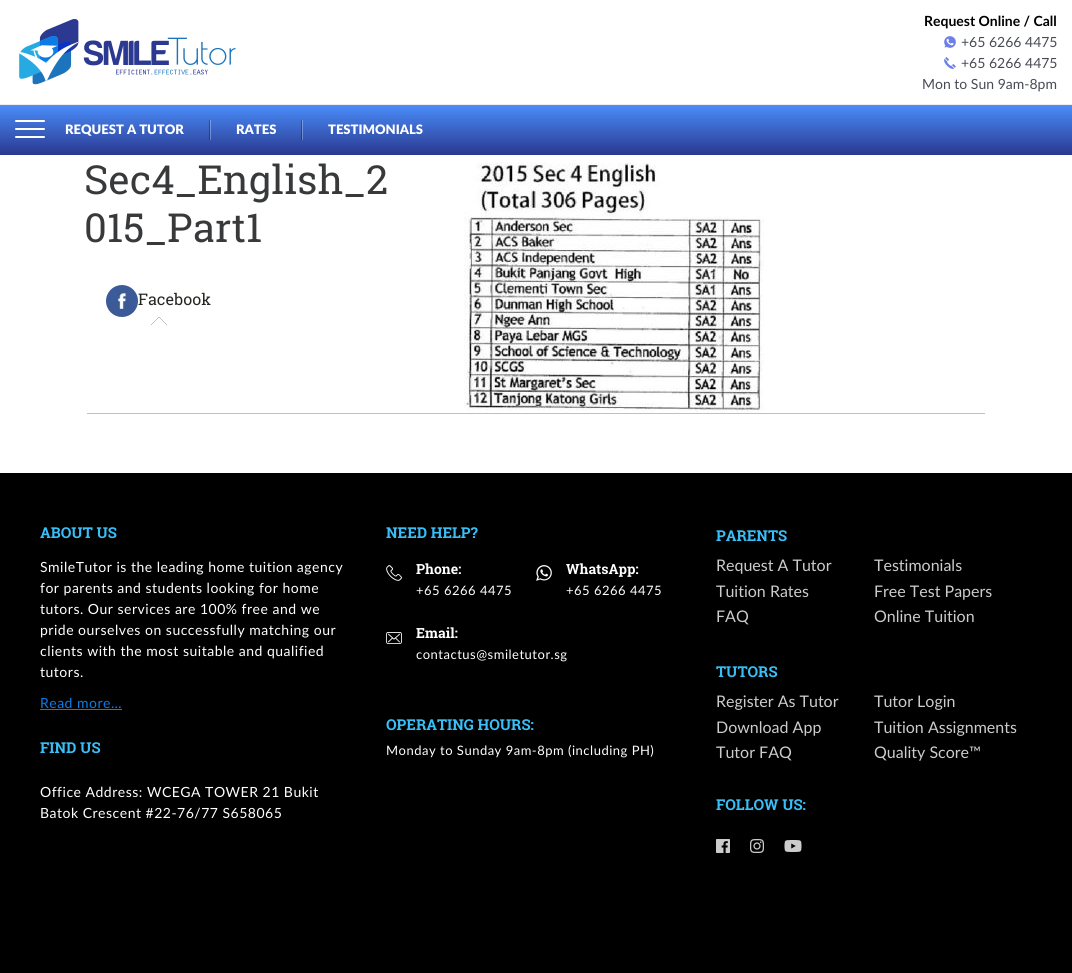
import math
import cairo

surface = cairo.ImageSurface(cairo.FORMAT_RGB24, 1072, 973)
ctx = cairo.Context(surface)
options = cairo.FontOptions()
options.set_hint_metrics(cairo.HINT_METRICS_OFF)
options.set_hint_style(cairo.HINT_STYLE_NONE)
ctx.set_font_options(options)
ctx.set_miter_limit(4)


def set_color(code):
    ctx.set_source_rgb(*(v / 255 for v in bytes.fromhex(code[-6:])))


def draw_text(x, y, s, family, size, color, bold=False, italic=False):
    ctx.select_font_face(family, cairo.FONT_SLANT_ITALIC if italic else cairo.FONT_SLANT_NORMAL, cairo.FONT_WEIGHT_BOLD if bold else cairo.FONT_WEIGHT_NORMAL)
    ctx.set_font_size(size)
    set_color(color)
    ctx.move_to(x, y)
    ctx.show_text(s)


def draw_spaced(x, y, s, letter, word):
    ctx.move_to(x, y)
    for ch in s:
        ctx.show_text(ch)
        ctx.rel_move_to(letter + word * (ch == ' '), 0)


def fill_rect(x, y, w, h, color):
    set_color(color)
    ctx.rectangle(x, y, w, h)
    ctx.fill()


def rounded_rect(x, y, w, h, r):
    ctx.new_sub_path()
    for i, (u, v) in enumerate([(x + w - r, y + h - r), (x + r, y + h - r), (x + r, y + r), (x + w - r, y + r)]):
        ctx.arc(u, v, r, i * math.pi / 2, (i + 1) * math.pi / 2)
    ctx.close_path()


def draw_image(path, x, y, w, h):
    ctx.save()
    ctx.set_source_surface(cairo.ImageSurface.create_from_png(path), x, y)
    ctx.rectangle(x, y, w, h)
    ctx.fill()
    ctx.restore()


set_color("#ffffff")
ctx.paint()
fill_rect(0, 104, 1072, 1, "#eeeeee")
draw_image("assets/img1.png", 19, 19, 217, 66)
draw_text(924, 26, "Request Online / Call", "Lato", 14, "#000000", bold=True)
draw_image("assets/img2.png", 944, 36, 12, 12)
draw_text(961, 47, "+65 6266 4475", "Lato", 14, "#484b54")
draw_image("assets/img3.png", 944, 57, 12, 12)
draw_text(961, 68, "+65 6266 4475", "Lato", 14, "#484b54")
draw_text(922, 89, "Mon to Sun 9am-8pm", "Lato", 14, "#484b54")
gradient = cairo.LinearGradient(536, 155, 536, 105)
gradient.add_color_stop_rgba(0, 0.165, 0.22, 0.561, 1)
gradient.add_color_stop_rgba(1, 0.29, 0.553, 0.98, 1)
ctx.set_source(gradient)
ctx.rectangle(0, 105, 1072, 50)
ctx.fill()
gradient = cairo.LinearGradient(536, 155, 536, 105)
gradient.add_color_stop_rgba(0, 0.416, 0.455, 0.694, 1)
gradient.add_color_stop_rgba(1, 0.502, 0.686, 0.988, 1)
ctx.set_source(gradient)
ctx.rectangle(302, 120, 1, 20)
ctx.fill()
ctx.rectangle(210, 120, 1, 20)
ctx.fill()
gradient = cairo.LinearGradient(536, 155, 536, 105)
gradient.add_color_stop_rgba(0, 0.114, 0.153, 0.392, 1)
gradient.add_color_stop_rgba(1, 0.204, 0.388, 0.686, 1)
ctx.set_source(gradient)
ctx.rectangle(301, 120, 1, 20)
ctx.fill()
ctx.rectangle(209, 120, 1, 20)
ctx.fill()
set_color("#ffffff")
rounded_rect(15, 120, 30, 2, 1)
ctx.fill()
rounded_rect(15, 128, 30, 2, 1)
ctx.fill()
rounded_rect(15, 136, 30, 2, 1)
ctx.fill()
draw_text(65, 134, "REQUEST A TUTOR", "Lato Black", 13, "#ffffff")
draw_text(236, 134, "RATES", "Lato Black", 13, "#ffffff")
draw_text(328, 134, "TESTIMONIALS", "Lato Black", 13, "#ffffff")
draw_text(84, 194, "Sec4_English_2", "Roboto Slab", 40, "#38393b")
draw_text(84, 242, "015_Part1", "Roboto Slab", 40, "#38393b")
draw_image("assets/img4.png", 464, 162, 300, 251)
fill_rect(87, 413, 898, 1, "#c0c0c0")
draw_image("assets/img5.png", 151, 317, 16, 8)
draw_image("assets/img6.png", 106, 285, 32, 32)
draw_text(138, 305, "Facebook", "Roboto Slab", 16, "#252723")
fill_rect(0, 473, 1072, 500, "#000000")
draw_text(40, 538, "ABOUT US", "Roboto Slab", 15, "#39bff7", bold=True)
ctx.select_font_face("Lato")
ctx.set_font_size(14)
set_color("#ffffff")
draw_spaced(40, 572, "SmileTutor is the leading home tuition agency", 0.5, 0)
draw_spaced(40, 593, "for parents and students looking for home", 0.5, 0)
draw_spaced(40, 614, "tutors. Our services are 100% free and we", 0.5, 0)
draw_spaced(40, 635, "pride ourselves on successfully matching our", 0.5, 0)
draw_spaced(40, 656, "clients with the most suitable and qualified", 0.5, 0)
draw_spaced(40, 677, "tutors.", 0.5, 0)
set_color("#0d7be5")
draw_spaced(40, 708, "Read more…", 0.5, 0)
fill_rect(40, 709, 82, 1, "#0d7be5")
draw_text(40, 753, "FIND US", "Roboto Slab", 15, "#39bff7", bold=True)
ctx.select_font_face("Lato")
ctx.set_font_size(14)
set_color("#ffffff")
draw_spaced(40, 797, "Office Address: WCEGA TOWER 21 Bukit", 0.5, 0)
draw_spaced(40, 818, "Batok Crescent #22-76/77 S658065", 0.5, 0)
draw_text(386, 538, "NEED HELP?", "Roboto Slab", 15, "#39bff7", bold=True)
draw_image("assets/img7.png", 386, 565, 16, 16)
draw_text(416, 574, "Phone:", "Roboto Slab", 14, "#ffffff", bold=True)
ctx.select_font_face("Lato")
ctx.set_font_size(13)
draw_spaced(416, 595, "+65 6266 4475", 0.5, 0)
draw_image("assets/img8.png", 536, 565, 16, 16)
draw_text(566, 574, "WhatsApp:", "Roboto Slab", 14, "#ffffff", bold=True)
ctx.select_font_face("Lato")
ctx.set_font_size(13)
draw_spaced(566, 595, "+65 6266 4475", 0.5, 0)
draw_image("assets/img9.png", 386, 632, 16, 12)
draw_text(416, 638, "Email:", "Roboto Slab", 14, "#ffffff", bold=True)
ctx.select_font_face("Lato")
ctx.set_font_size(13)
draw_spaced(416, 659, "contactus@smiletutor.sg", 0.5, 0)
draw_text(386, 730, "OPERATING HOURS:", "Roboto Slab", 15, "#39bff7", bold=True)
ctx.select_font_face("Lato")
ctx.set_font_size(13)
set_color("#ffffff")
draw_spaced(386, 755, "Monday to Sunday 9am-8pm (including PH)", 0.5, 0)
draw_text(716, 541, "PARENTS", "Roboto Slab", 15, "#39bff7", bold=True)
draw_text(716, 571, "Request A Tutor", "Lato", 16, "#cccccc")
draw_text(874, 571, "Testimonials", "Lato", 16, "#cccccc")
draw_text(716, 597, "Tuition Rates", "Lato", 16, "#cccccc")
draw_text(874, 597, "Free Test Papers", "Lato", 16, "#cccccc")
draw_text(716, 622, "FAQ", "Lato", 16, "#cccccc")
draw_text(874, 622, "Online Tuition", "Lato", 16, "#cccccc")
draw_text(716, 677, "TUTORS", "Roboto Slab", 15, "#39bff7", bold=True)
draw_text(716, 707, "Register As Tutor", "Lato", 16, "#cccccc")
draw_text(874, 707, "Tutor Login", "Lato", 16, "#cccccc")
draw_text(716, 733, "Download App", "Lato", 16, "#cccccc")
draw_text(874, 733, "Tuition Assignments", "Lato", 16, "#cccccc")
draw_text(716, 758, "Tutor FAQ", "Lato", 16, "#cccccc")
draw_text(874, 758, "Quality Score™", "Lato", 16, "#cccccc")
draw_text(716, 810, "FOLLOW US:", "Roboto Slab", 15, "#39bff7", bold=True)
draw_image("assets/img10.png", 716, 839, 14, 14)
draw_image("assets/img11.png", 750, 839, 14, 14)
draw_image("assets/img12.png", 784, 840, 18, 12)
surface.write_to_png("output.png")
